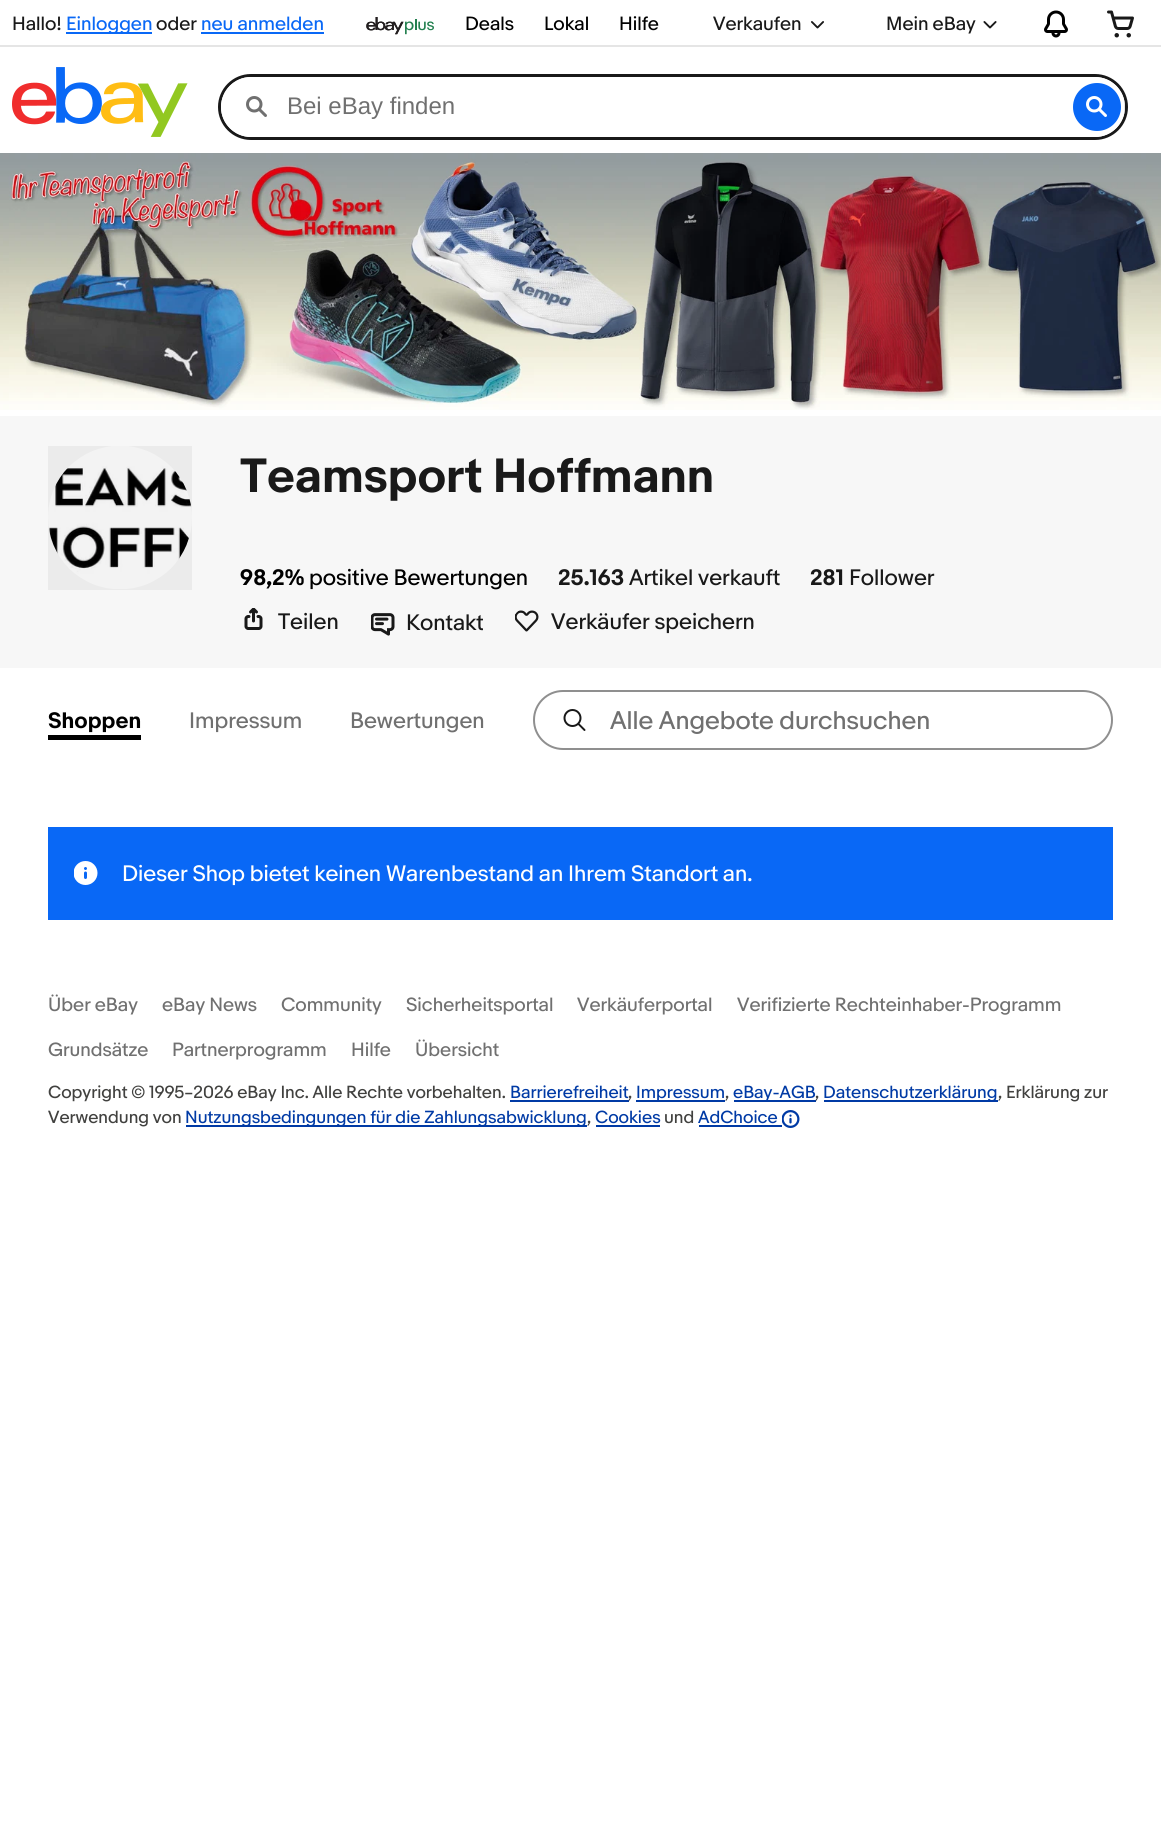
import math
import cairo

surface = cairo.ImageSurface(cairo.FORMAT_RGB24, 1161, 1843)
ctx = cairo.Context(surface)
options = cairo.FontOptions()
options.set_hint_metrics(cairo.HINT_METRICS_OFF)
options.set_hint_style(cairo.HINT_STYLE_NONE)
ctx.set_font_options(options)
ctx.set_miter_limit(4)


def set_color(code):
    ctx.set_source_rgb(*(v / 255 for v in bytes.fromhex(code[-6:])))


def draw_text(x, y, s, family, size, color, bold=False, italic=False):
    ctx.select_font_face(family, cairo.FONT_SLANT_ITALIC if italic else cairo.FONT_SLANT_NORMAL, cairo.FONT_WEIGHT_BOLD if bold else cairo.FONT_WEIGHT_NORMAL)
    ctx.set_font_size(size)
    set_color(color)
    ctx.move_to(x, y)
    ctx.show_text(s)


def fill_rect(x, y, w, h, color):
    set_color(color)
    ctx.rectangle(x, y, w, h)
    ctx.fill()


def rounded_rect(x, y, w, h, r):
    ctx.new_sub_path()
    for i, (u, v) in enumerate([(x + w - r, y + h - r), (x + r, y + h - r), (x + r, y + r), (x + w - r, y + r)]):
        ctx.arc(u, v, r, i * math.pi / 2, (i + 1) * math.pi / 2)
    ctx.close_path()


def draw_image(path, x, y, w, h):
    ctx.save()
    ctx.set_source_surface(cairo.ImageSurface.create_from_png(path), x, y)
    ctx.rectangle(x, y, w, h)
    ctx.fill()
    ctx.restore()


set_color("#ffffff")
ctx.paint()
draw_text(12, 30, "Hallo!", "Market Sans", 18, "#191919")
fill_rect(66, 32, 86, 2, "#0968f6")
draw_text(66, 30, "Einloggen", "Market Sans", 18, "#0968f6")
draw_text(156, 30, "oder", "Market Sans", 18, "#191919")
draw_text(201, 30, "neu anmelden", "Market Sans", 18, "#0968f6")
fill_rect(201, 32, 123, 2, "#0968f6")
draw_image("assets/img1.png", 366, 17, 68, 18)
draw_text(465, 30, "Deals", "Market Sans", 18, "#000000")
draw_text(544, 30, "Lokal", "Market Sans", 18, "#000000")
draw_text(619, 30, "Hilfe", "Market Sans", 18, "#000000")
draw_text(713, 30, "Verkaufen", "Market Sans", 18, "#191919")
draw_image("assets/img2.png", 811, 21, 13, 8)
draw_text(886, 30, "Mein eBay", "Market Sans", 18, "#191919")
draw_image("assets/img3.png", 983, 21, 14, 8)
draw_image("assets/img4.png", 1044, 10, 24, 28)
draw_image("assets/img5.png", 1107, 10, 27, 28)
draw_image("assets/img6.png", 12, 67, 176, 70)
rounded_rect(219.5, 75.5, 907, 63, 31.5)
ctx.set_line_width(3)
ctx.stroke()
ctx.save()
rounded_rect(221, 77, 904, 60, 30)
ctx.clip()
fill_rect(1124, 99, 1, 16, "#e5e5e5")
set_color("#ffffff")
ctx.new_path()
ctx.move_to(251, 77)
ctx.line_to(1124, 77)
ctx.line_to(1124, 137)
ctx.line_to(251, 137)
ctx.curve_to(234.5, 137, 221, 123.5, 221, 107)
ctx.curve_to(221, 90.5, 234.5, 77, 251, 77)
ctx.close_path()
ctx.fill()
ctx.restore()
draw_image("assets/img7.png", 246, 96, 21, 21)
draw_text(287, 114, "Bei eBay finden", "Liberation Sans", 24, "#707070")
set_color("#0968f6")
ctx.new_path()
ctx.arc(1097, 107, 23, 0, 2 * math.pi)
ctx.fill_preserve()
ctx.set_line_width(2)
ctx.stroke()
draw_image("assets/img8.png", 1086, 96, 21, 21)
fill_rect(0, 45, 1161, 2, "#e5e5e5")
draw_image("assets/img9.png", 0, 153, 1161, 257)
fill_rect(0, 416, 1161, 252, "#f7f7f7")
draw_image("assets/img10.png", 48, 446, 144, 143)
ctx.set_source_rgba(0, 0, 0, 0.05)
ctx.rectangle(48, 446, 144, 144)
ctx.fill()
draw_text(240, 492, "Teamsport Hoffmann", "Market Sans", 45, "#191919", bold=True)
draw_text(240, 585, "98,2%", "Market Sans", 21, "#000000", bold=True)
draw_text(309, 585, "positive Bewertungen", "Market Sans", 21, "#000000")
draw_text(558, 585, "25.163", "Market Sans", 21, "#191919", bold=True)
draw_text(629, 585, "Artikel verkauft", "Market Sans", 21, "#191919")
draw_text(810, 585, "281", "Market Sans", 21, "#191919", bold=True)
draw_text(849, 585, "Follower", "Market Sans", 21, "#191919")
draw_image("assets/img11.png", 244, 608, 19, 22)
draw_text(278, 629, "Teilen", "Market Sans", 21, "#191919")
draw_image("assets/img12.png", 371, 613, 24, 23)
draw_text(406, 630, "Kontakt", "Market Sans", 21, "#191919")
draw_image("assets/img13.png", 515, 610, 24, 22)
ctx.save()
rounded_rect(513, 608, 242, 27, 13.5)
ctx.clip()
draw_text(551, 629, "Verkäufer speichern", "Market Sans", 21, "#191919")
ctx.restore()
fill_rect(48, 735, 93, 5, "#000000")
draw_text(48, 728, "Shoppen", "Market Sans", 21, "#000000", bold=True)
draw_text(189, 728, "Impressum", "Market Sans", 21, "#707070")
draw_text(350, 728, "Bewertungen", "Market Sans", 21, "#707070")
rounded_rect(534, 691, 578, 58, 29)
set_color("#8f8f8f")
ctx.stroke()
draw_image("assets/img14.png", 563, 709, 23, 22)
draw_text(610, 729, "Alle Angebote durchsuchen", "Market Sans", 24, "#707070")
fill_rect(48, 827, 1065, 93, "#0968f6")
draw_image("assets/img15.png", 74, 861, 24, 24)
draw_text(122, 881, "Dieser Shop bietet keinen Warenbestand an Ihrem Standort an.", "Market Sans", 21, "#ffffff")
draw_text(48, 1011, "Über eBay", "Market Sans", 18, "#707070")
draw_text(162, 1011, "eBay News", "Market Sans", 18, "#707070")
draw_text(281, 1011, "Community", "Market Sans", 18, "#707070")
draw_text(406, 1011, "Sicherheitsportal", "Market Sans", 18, "#707070")
draw_text(577, 1011, "Verkäuferportal", "Market Sans", 18, "#707070")
draw_text(737, 1011, "Verifizierte Rechteinhaber-Programm", "Market Sans", 18, "#707070")
draw_text(48, 1056, "Grundsätze", "Market Sans", 18, "#707070")
draw_text(172, 1056, "Partnerprogramm", "Market Sans", 18, "#707070")
draw_text(351, 1056, "Hilfe", "Market Sans", 18, "#707070")
draw_text(415, 1056, "Übersicht", "Market Sans", 18, "#707070")
draw_text(48, 1098, "Copyright © 1995–2026 eBay Inc. Alle Rechte vorbehalten.", "Market Sans", 16.5, "#41413f")
draw_text(510, 1098, "Barrierefreiheit", "Market Sans", 16.5, "#003aa5")
fill_rect(510, 1100, 119, 2, "#003aa5")
draw_text(628, 1098, ",", "Market Sans", 16.5, "#41413f")
fill_rect(636, 1100, 89, 2, "#003aa5")
draw_text(636, 1098, "Impressum", "Market Sans", 16.5, "#003aa5")
draw_text(725, 1098, ",", "Market Sans", 16.5, "#41413f")
fill_rect(734, 1100, 82, 2, "#003aa5")
draw_text(733, 1098, "eBay-AGB", "Market Sans", 16.5, "#003aa5")
draw_text(815, 1098, ",", "Market Sans", 16.5, "#41413f")
fill_rect(824, 1100, 174, 2, "#003aa5")
draw_text(823, 1098, "Datenschutzerklärung", "Market Sans", 16.5, "#003aa5")
draw_text(998, 1098, ", Erklärung zur", "Market Sans", 16.5, "#41413f")
draw_text(48, 1123, "Verwendung von", "Market Sans", 16.5, "#41413f")
fill_rect(186, 1125, 401, 2, "#003aa5")
draw_text(185, 1123, "Nutzungsbedingungen für die Zahlungsabwicklung", "Market Sans", 16.5, "#003aa5")
draw_text(587, 1123, ",", "Market Sans", 16.5, "#41413f")
draw_text(595, 1123, "Cookies", "Market Sans", 16.5, "#003aa5")
fill_rect(596, 1125, 64, 2, "#003aa5")
draw_text(664, 1123, "und", "Market Sans", 16.5, "#41413f")
draw_text(698, 1123, "AdChoice", "Market Sans", 16.5, "#003aa5")
fill_rect(699, 1125, 83, 2, "#003aa5")
draw_image("assets/img16.png", 782, 1110, 18, 18)
surface.write_to_png("output.png")
